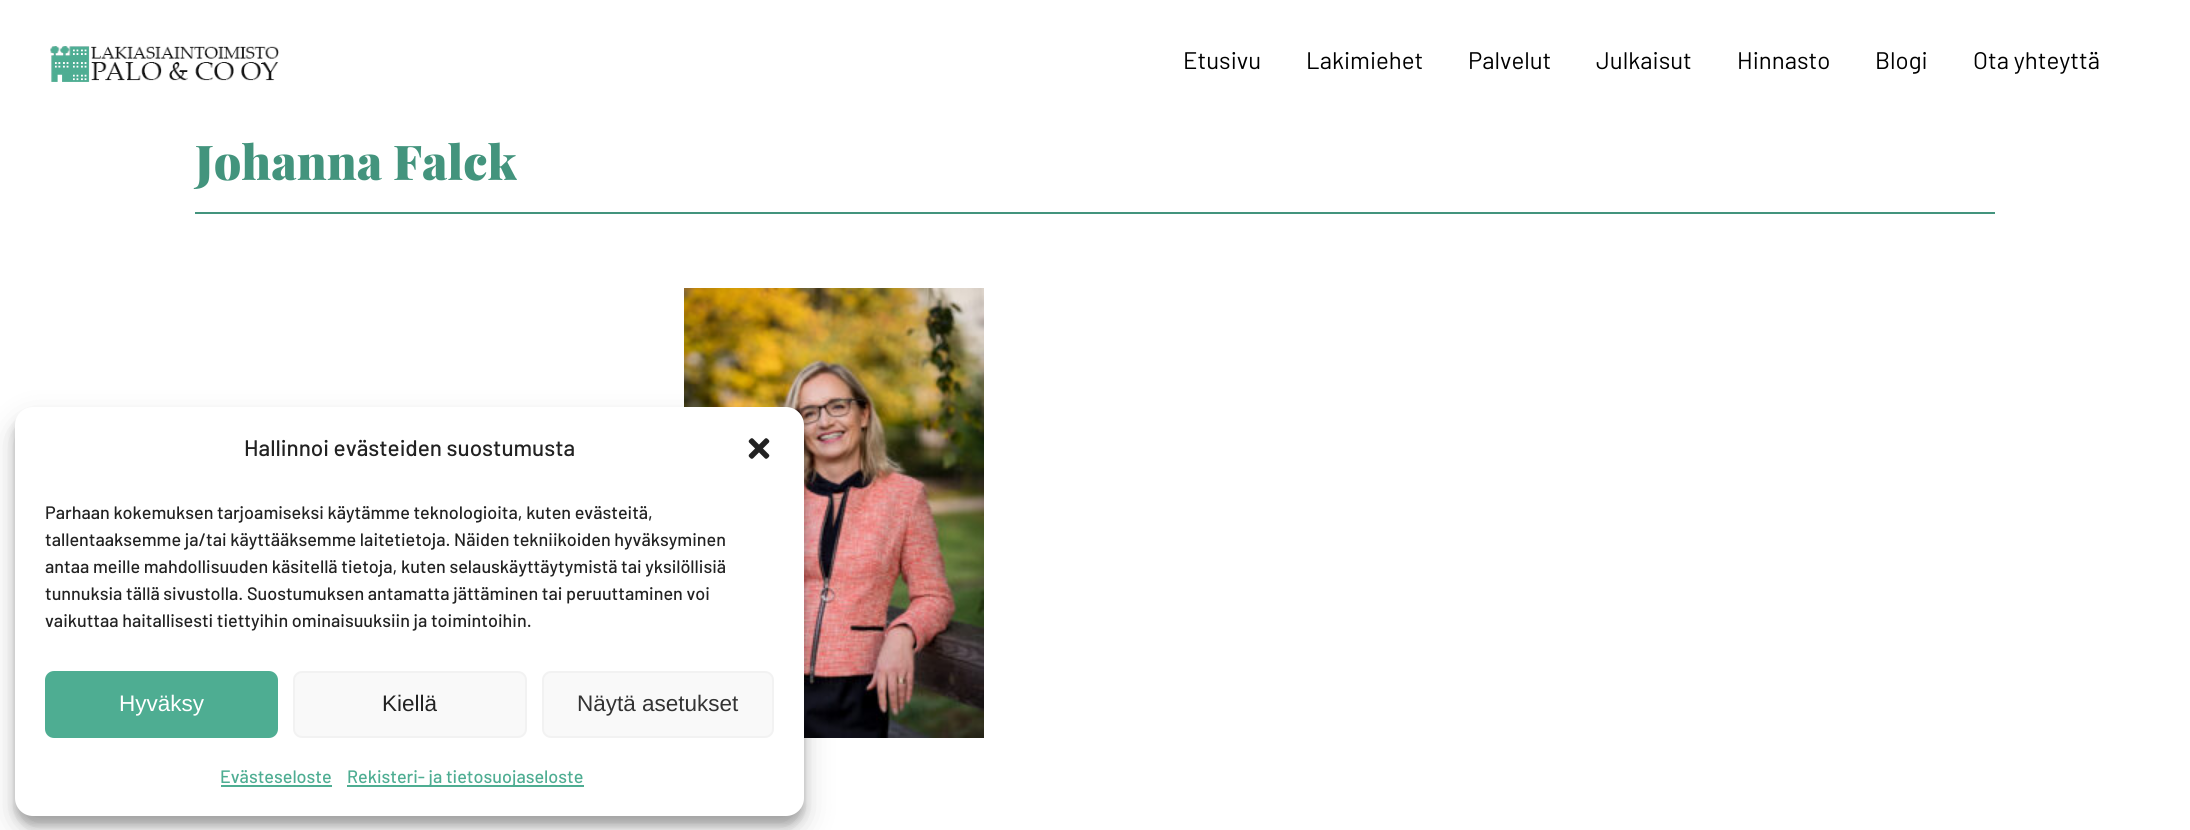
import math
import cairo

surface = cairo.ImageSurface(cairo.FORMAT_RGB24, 2190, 830)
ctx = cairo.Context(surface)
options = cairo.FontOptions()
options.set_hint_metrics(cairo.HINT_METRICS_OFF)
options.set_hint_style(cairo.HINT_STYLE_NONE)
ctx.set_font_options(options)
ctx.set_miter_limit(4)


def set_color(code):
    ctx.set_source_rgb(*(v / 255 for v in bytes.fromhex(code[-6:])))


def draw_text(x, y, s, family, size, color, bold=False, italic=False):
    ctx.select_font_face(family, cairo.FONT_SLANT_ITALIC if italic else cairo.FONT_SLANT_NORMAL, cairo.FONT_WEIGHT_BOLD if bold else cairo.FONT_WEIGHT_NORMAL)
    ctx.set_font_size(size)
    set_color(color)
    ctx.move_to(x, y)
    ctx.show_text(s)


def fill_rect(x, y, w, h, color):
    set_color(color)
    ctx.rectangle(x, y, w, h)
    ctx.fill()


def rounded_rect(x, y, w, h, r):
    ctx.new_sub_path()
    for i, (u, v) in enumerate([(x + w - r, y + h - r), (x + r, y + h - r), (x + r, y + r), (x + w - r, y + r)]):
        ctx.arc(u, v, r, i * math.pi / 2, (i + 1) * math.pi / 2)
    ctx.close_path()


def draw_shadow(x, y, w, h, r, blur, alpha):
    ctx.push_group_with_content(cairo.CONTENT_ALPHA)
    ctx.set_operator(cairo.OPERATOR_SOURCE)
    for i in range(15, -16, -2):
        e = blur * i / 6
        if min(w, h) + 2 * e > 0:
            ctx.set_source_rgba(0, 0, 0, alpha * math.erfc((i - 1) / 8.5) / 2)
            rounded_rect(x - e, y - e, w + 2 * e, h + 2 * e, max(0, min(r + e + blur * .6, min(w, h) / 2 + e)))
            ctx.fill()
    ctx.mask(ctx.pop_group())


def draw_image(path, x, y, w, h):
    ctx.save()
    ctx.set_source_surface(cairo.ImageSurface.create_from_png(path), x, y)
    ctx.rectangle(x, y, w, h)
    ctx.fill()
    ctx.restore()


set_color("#ffffff")
ctx.paint()
draw_image("assets/img1.png", 50, 46, 229, 36)
draw_text(1183, 69, "Etusivu", "Barlow", 24, "#000000")
draw_text(1306, 69, "Lakimiehet", "Barlow", 24, "#000000")
draw_text(1468, 69, "Palvelut", "Barlow", 24, "#000000")
draw_text(1596, 69, "Julkaisut", "Barlow", 24, "#000000")
draw_text(1737, 69, "Hinnasto", "Barlow", 24, "#000000")
draw_text(1875, 69, "Blogi", "Barlow", 24, "#000000")
draw_text(1973, 69, "Ota yhteyttä", "Barlow", 24, "#000000")
fill_rect(195, 212, 1800, 2, "#43947d")
draw_text(195, 180, "Johanna Falck", "Playfair Display Black", 48, "#43947d")
draw_image("assets/img2.png", 684, 288, 300, 450)
set_color("#000000")
draw_shadow(15, 416, 789, 409, 18, 4.5, 0.23)
draw_shadow(15, 422, 789, 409, 18, 15, 0.19)
set_color("#ffffff")
rounded_rect(15, 407, 789, 409, 18)
ctx.fill()
draw_text(244, 456, "Hallinnoi evästeiden suostumusta", "Barlow Medium", 22.5, "#222222")
draw_image("assets/img3.png", 748, 438, 22, 21)
draw_text(45, 519, "Parhaan kokemuksen tarjoamiseksi käytämme teknologioita, kuten evästeitä,", "Barlow Medium", 18, "#222222")
draw_text(45, 546, "tallentaaksemme ja/tai käyttääksemme laitetietoja. Näiden tekniikoiden hyväksyminen", "Barlow Medium", 18, "#222222")
draw_text(45, 573, "antaa meille mahdollisuuden käsitellä tietoja, kuten selauskäyttäytymistä tai yksilöllisiä", "Barlow Medium", 18, "#222222")
draw_text(45, 600, "tunnuksia tällä sivustolla. Suostumuksen antamatta jättäminen tai peruuttaminen voi", "Barlow Medium", 18, "#222222")
draw_text(45, 627, "vaikuttaa haitallisesti tiettyihin ominaisuuksiin ja toimintoihin.", "Barlow Medium", 18, "#222222")
set_color("#4ead92")
rounded_rect(46, 672, 231, 65, 8)
ctx.fill_preserve()
ctx.stroke()
draw_text(119, 711, "Hyväksy", "Liberation Sans", 22.5, "#ffffff")
set_color("#f9f9f9")
rounded_rect(294, 672, 232, 65, 8)
ctx.fill_preserve()
set_color("#f2f2f2")
ctx.stroke()
draw_text(382, 711, "Kiellä", "Liberation Sans", 22.5, "#222222")
set_color("#f9f9f9")
rounded_rect(543, 672, 230, 65, 8)
ctx.fill_preserve()
set_color("#f2f2f2")
ctx.stroke()
draw_text(577, 711, "Näytä asetukset", "Liberation Sans", 22.5, "#333333")
draw_text(220, 783, "Evästeseloste", "Barlow Medium", 18, "#4ead92")
fill_rect(221, 785, 111, 2, "#4ead92")
fill_rect(347, 785, 237, 2, "#4ead92")
draw_text(347, 783, "Rekisteri- ja tietosuojaseloste", "Barlow Medium", 18, "#4ead92")
surface.write_to_png("output.png")
